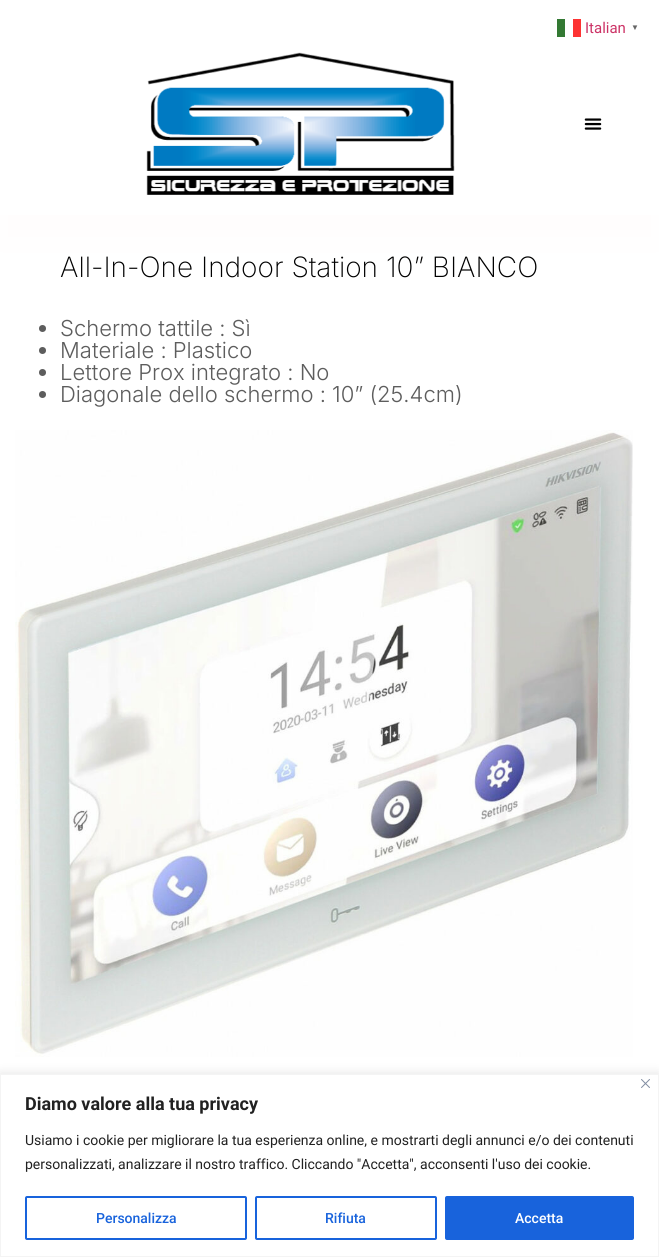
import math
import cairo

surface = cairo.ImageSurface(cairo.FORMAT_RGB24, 659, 1257)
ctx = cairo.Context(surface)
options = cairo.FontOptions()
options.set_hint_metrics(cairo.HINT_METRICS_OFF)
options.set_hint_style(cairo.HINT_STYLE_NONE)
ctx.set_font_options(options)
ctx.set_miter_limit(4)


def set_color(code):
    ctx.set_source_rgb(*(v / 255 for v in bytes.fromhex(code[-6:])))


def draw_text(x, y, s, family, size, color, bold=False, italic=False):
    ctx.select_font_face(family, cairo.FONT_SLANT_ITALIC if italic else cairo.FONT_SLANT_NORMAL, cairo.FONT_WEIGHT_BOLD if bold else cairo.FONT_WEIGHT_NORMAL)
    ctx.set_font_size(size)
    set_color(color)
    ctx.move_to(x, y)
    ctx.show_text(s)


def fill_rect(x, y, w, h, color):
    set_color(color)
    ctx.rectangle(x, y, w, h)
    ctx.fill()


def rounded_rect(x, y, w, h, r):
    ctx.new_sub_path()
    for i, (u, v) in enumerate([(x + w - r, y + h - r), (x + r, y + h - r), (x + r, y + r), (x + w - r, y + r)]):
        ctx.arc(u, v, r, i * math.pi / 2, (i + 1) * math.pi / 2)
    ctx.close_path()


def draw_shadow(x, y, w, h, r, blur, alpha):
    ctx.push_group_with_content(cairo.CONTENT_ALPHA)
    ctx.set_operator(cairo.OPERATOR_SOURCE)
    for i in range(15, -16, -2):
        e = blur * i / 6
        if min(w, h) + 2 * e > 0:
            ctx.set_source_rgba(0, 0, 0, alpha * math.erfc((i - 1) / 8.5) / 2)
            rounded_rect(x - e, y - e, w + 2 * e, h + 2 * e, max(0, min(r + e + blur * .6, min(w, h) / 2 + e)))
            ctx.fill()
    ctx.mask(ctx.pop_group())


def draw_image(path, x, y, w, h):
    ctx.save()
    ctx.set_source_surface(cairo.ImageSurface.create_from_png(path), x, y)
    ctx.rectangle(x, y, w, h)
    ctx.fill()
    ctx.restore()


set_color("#ffffff")
ctx.paint()
ctx.save()
ctx.rectangle(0, 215, 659, 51)
ctx.clip()
set_color("#fffdfd")
draw_shadow(0, 30, 659, 215, 0, 10, 1)
ctx.restore()
draw_image("assets/img1.png", 146, 52, 309, 143)
draw_image("assets/img2.png", 584, 118, 18, 12)
draw_text(585, 33, "Italian", "Roboto", 15, "#cc3366")
fill_rect(557, 19, 8, 18, "#337933")
fill_rect(573, 19, 8, 18, "#fd3333")
draw_text(631, 30, "▼", "Liberation Sans", 8, "#666666", bold=True)
draw_text(60, 277, "All-In-One Indoor Station 10” BIANCO", "Inter ExtraLight", 28, "#000000")
set_color("#5d5d5d")
ctx.new_path()
ctx.arc(42.5, 328.5, 3.5, 0, 2 * math.pi)
ctx.fill()
draw_text(60, 336, "Schermo tattile : Sì", "Inter Light", 22, "#5d5d5d")
ctx.new_path()
ctx.arc(42.5, 350.5, 3.5, 0, 2 * math.pi)
ctx.fill()
draw_text(60, 358, "Materiale : Plastico", "Inter Light", 22, "#5d5d5d")
ctx.new_path()
ctx.arc(42.5, 372.5, 3.5, 0, 2 * math.pi)
ctx.fill()
draw_text(60, 380, "Lettore Prox integrato : No", "Inter Light", 22, "#5d5d5d")
ctx.new_path()
ctx.arc(42.5, 394.5, 3.5, 0, 2 * math.pi)
ctx.fill()
draw_text(60, 402, "Diagonale dello schermo : 10” (25.4cm)", "Inter Light", 22, "#5d5d5d")
draw_image("assets/img3.png", 15, 430, 618, 627)
set_color("#acabab")
draw_shadow(0, 1073, 659, 183, 0, 5, 0.3)
set_color("#ffffff")
ctx.rectangle(0.5, 1074.5, 658, 182)
ctx.fill_preserve()
set_color("#f4f4f4")
ctx.set_line_width(1)
ctx.stroke()
draw_image("assets/img4.png", 641, 1079, 9, 9)
draw_text(25, 1110, "Diamo valore alla tua privacy", "Roboto", 18, "#212121", bold=True)
draw_text(25, 1145, "Usiamo i cookie per migliorare la tua esperienza online, e mostrarti degli annunci e/o dei contenuti", "Roboto", 14, "#212121")
draw_text(25, 1169, "personalizzati, analizzare il nostro traffico. Cliccando \"Accetta\", acconsenti l'uso dei cookie.", "Roboto", 14, "#212121")
rounded_rect(26, 1197, 220, 42, 1)
set_color("#1863dc")
ctx.set_line_width(2)
ctx.stroke()
draw_text(96, 1223, "Personalizza", "Roboto Medium", 14, "#1863dc")
rounded_rect(256, 1197, 180, 42, 1)
ctx.stroke()
draw_text(325, 1223, "Rifiuta", "Roboto Medium", 14, "#1863dc")
rounded_rect(446, 1197, 187, 42, 1)
ctx.fill_preserve()
ctx.stroke()
draw_text(515, 1223, "Accetta", "Roboto Medium", 14, "#ffffff")
surface.write_to_png("output.png")
